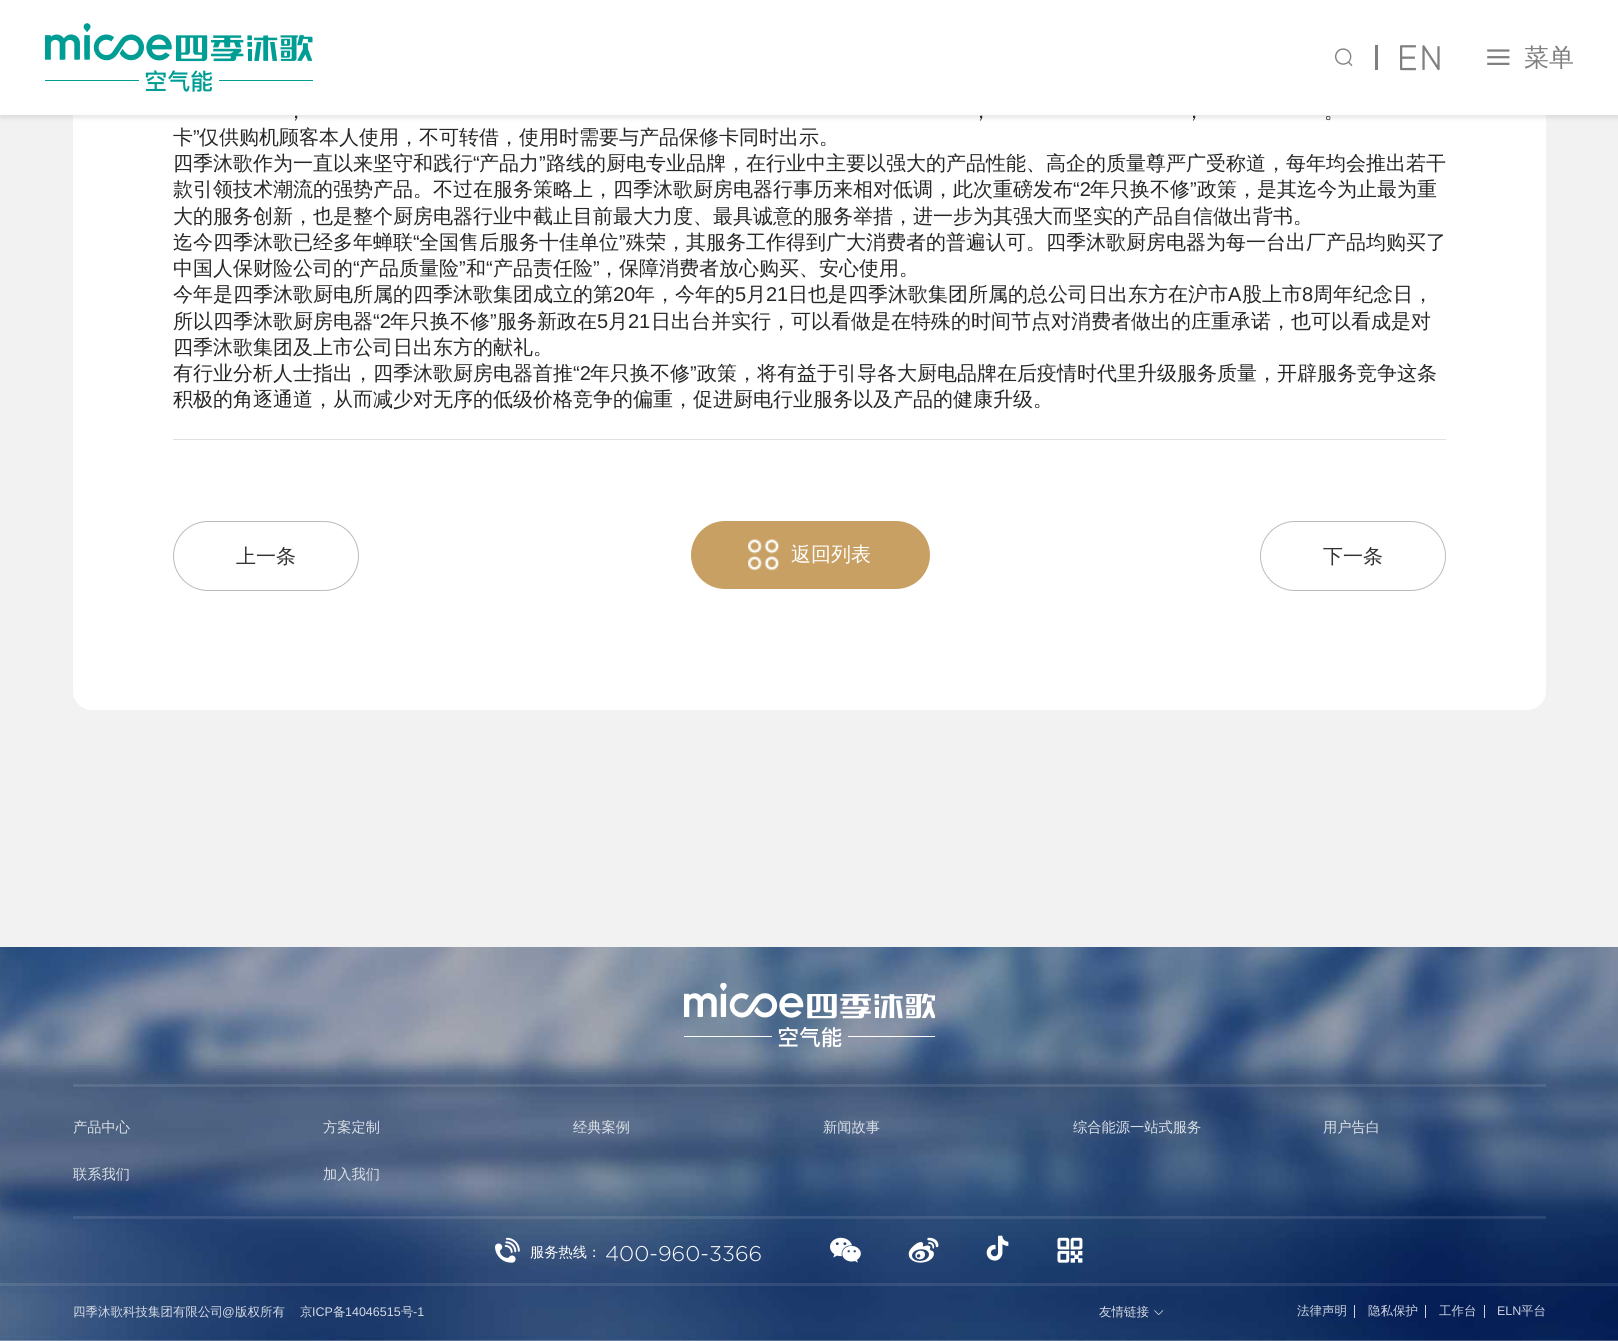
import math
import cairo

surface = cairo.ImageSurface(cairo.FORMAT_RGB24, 1618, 1341)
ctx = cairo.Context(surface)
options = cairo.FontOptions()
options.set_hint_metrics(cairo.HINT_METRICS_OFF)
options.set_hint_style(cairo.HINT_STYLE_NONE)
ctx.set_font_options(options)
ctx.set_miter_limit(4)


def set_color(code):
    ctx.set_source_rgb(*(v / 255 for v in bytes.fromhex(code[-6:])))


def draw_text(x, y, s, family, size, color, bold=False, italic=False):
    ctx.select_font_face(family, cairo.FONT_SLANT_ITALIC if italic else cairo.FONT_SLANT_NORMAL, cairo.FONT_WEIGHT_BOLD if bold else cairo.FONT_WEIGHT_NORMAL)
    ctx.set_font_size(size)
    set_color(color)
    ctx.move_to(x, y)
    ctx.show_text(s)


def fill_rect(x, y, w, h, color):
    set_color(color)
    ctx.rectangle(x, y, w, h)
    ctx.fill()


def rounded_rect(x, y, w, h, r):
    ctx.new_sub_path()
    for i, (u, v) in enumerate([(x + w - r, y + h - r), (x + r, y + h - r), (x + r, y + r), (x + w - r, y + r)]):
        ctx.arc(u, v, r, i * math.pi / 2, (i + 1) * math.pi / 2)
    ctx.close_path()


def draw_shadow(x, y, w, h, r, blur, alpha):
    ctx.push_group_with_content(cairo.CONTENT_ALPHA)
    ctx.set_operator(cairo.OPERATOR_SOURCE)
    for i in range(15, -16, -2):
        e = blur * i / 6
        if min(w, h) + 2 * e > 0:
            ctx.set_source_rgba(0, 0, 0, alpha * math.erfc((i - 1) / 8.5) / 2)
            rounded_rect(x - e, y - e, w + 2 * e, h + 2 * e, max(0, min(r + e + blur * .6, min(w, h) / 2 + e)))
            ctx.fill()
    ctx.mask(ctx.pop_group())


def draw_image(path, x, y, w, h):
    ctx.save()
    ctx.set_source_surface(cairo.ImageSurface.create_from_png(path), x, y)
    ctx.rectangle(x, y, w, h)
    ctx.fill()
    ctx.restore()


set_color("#ffffff")
ctx.paint()
fill_rect(0, 115, 1618, 832, "#f2f2f2")
set_color("#ffffff")
rounded_rect(73, -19, 1473, 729, 19)
ctx.fill()
set_color("#000000")
draw_shadow(0, 3, 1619, 115, 0, 2.5, 0.1)
fill_rect(0, 0, 1618, 115, "#ffffff")
draw_image("assets/img1.png", 45, 23, 268, 69)
draw_image("assets/img2.png", 1335, 48, 18, 19)
fill_rect(1375, 45, 3, 25, "#7f7f7f")
draw_image("assets/img3.png", 1400, 45, 40, 26)
draw_image("assets/img4.png", 1487, 49, 23, 16)
draw_text(1524, 66, "菜单", "WenQuanYi Zen Hei Medium", 25, "#7f7f7f")
draw_text(286, 118, "，", "WenQuanYi Zen Hei Medium", 20, "#262626")
draw_text(971, 118, "，", "WenQuanYi Zen Hei Medium", 20, "#262626")
draw_text(1184, 118, "，", "WenQuanYi Zen Hei Medium", 20, "#262626")
draw_text(1324, 118, "。", "WenQuanYi Zen Hei Medium", 20, "#262626")
draw_text(173, 144, "卡", "WenQuanYi Zen Hei Medium", 20, "#262626")
draw_text(193, 144, "”", "Liberation Sans", 20, "#262626")
draw_text(199, 144, "仅供购机顾客本人使用，不可转借，使用时需要与产品保修卡同时出示。", "WenQuanYi Zen Hei Medium", 20, "#262626")
draw_text(173, 170, "四季沐歌作为一直以来坚守和践行", "WenQuanYi Zen Hei Medium", 20, "#262626")
draw_text(473, 170, "“", "Liberation Sans", 20, "#262626")
draw_text(479, 170, "产品力", "WenQuanYi Zen Hei Medium", 20, "#262626")
draw_text(539, 170, "”", "Liberation Sans", 20, "#262626")
draw_text(546, 170, "路线的厨电专业品牌，在行业中主要以强大的产品性能、高企的质量尊严广受称道，每年均会推出若干", "WenQuanYi Zen Hei Medium", 20, "#262626")
draw_text(173, 196, "款引领技术潮流的强势产品。不过在服务策略上，四季沐歌厨房电器行事历来相对低调，此次重磅发布", "WenQuanYi Zen Hei Medium", 20, "#262626")
draw_text(1073, 196, "“2", "Liberation Sans", 20, "#262626")
draw_text(1090, 196, "年只换不修", "WenQuanYi Zen Hei Medium", 20, "#262626")
draw_text(1190, 196, "”", "Liberation Sans", 20, "#262626")
draw_text(1197, 196, "政策，是其迄今为止最为重", "WenQuanYi Zen Hei Medium", 20, "#262626")
draw_text(173, 223, "大的服务创新，也是整个厨房电器行业中截止目前最大力度、最具诚意的服务举措，进一步为其强大而坚实的产品自信做出背书。", "WenQuanYi Zen Hei Medium", 20, "#262626")
draw_text(173, 249, "迄今四季沐歌已经多年蝉联", "WenQuanYi Zen Hei Medium", 20, "#262626")
draw_text(413, 249, "“", "Liberation Sans", 20, "#262626")
draw_text(419, 249, "全国售后服务十佳单位", "WenQuanYi Zen Hei Medium", 20, "#262626")
draw_text(619, 249, "”", "Liberation Sans", 20, "#262626")
draw_text(626, 249, "殊荣，其服务工作得到广大消费者的普遍认可。四季沐歌厨房电器为每一台出厂产品均购买了", "WenQuanYi Zen Hei Medium", 20, "#262626")
draw_text(173, 275, "中国人保财险公司的", "WenQuanYi Zen Hei Medium", 20, "#262626")
draw_text(353, 275, "“", "Liberation Sans", 20, "#262626")
draw_text(359, 275, "产品质量险", "WenQuanYi Zen Hei Medium", 20, "#262626")
draw_text(459, 275, "”", "Liberation Sans", 20, "#262626")
draw_text(466, 275, "和", "WenQuanYi Zen Hei Medium", 20, "#262626")
draw_text(486, 275, "“", "Liberation Sans", 20, "#262626")
draw_text(493, 275, "产品责任险", "WenQuanYi Zen Hei Medium", 20, "#262626")
draw_text(593, 275, "”", "Liberation Sans", 20, "#262626")
draw_text(599, 275, "，保障消费者放心购买、安心使用。", "WenQuanYi Zen Hei Medium", 20, "#262626")
draw_text(173, 301, "今年是四季沐歌厨电所属的四季沐歌集团成立的第", "WenQuanYi Zen Hei Medium", 20, "#262626")
draw_text(613, 301, "20", "Liberation Sans", 20, "#262626")
draw_text(635, 301, "年，今年的", "WenQuanYi Zen Hei Medium", 20, "#262626")
draw_text(735, 301, "5", "Liberation Sans", 20, "#262626")
draw_text(746, 301, "月", "WenQuanYi Zen Hei Medium", 20, "#262626")
draw_text(766, 301, "21", "Liberation Sans", 20, "#262626")
draw_text(788, 301, "日也是四季沐歌集团所属的总公司日出东方在沪市", "WenQuanYi Zen Hei Medium", 20, "#262626")
draw_text(1228, 301, "A", "Liberation Sans", 20, "#262626")
draw_text(1242, 301, "股上市", "WenQuanYi Zen Hei Medium", 20, "#262626")
draw_text(1302, 301, "8", "Liberation Sans", 20, "#262626")
draw_text(1313, 301, "周年纪念日，", "WenQuanYi Zen Hei Medium", 20, "#262626")
draw_text(173, 328, "所以四季沐歌厨房电器", "WenQuanYi Zen Hei Medium", 20, "#262626")
draw_text(373, 328, "“2", "Liberation Sans", 20, "#262626")
draw_text(390, 328, "年只换不修", "WenQuanYi Zen Hei Medium", 20, "#262626")
draw_text(490, 328, "”", "Liberation Sans", 20, "#262626")
draw_text(497, 328, "服务新政在", "WenQuanYi Zen Hei Medium", 20, "#262626")
draw_text(597, 328, "5", "Liberation Sans", 20, "#262626")
draw_text(608, 328, "月", "WenQuanYi Zen Hei Medium", 20, "#262626")
draw_text(628, 328, "21", "Liberation Sans", 20, "#262626")
draw_text(651, 328, "日出台并实行，可以看做是在特殊的时间节点对消费者做出的庄重承诺，也可以看成是对", "WenQuanYi Zen Hei Medium", 20, "#262626")
draw_text(173, 354, "四季沐歌集团及上市公司日出东方的献礼。", "WenQuanYi Zen Hei Medium", 20, "#262626")
draw_text(173, 380, "有行业分析人士指出，四季沐歌厨房电器首推", "WenQuanYi Zen Hei Medium", 20, "#262626")
draw_text(573, 380, "“2", "Liberation Sans", 20, "#262626")
draw_text(590, 380, "年只换不修", "WenQuanYi Zen Hei Medium", 20, "#262626")
draw_text(690, 380, "”", "Liberation Sans", 20, "#262626")
draw_text(697, 380, "政策，将有益于引导各大厨电品牌在后疫情时代里升级服务质量，开辟服务竞争这条", "WenQuanYi Zen Hei Medium", 20, "#262626")
draw_text(173, 406, "积极的角逐通道，从而减少对无序的低级价格竞争的偏重，促进厨电行业服务以及产品的健康升级。", "WenQuanYi Zen Hei Medium", 20, "#262626")
fill_rect(173, 439, 1273, 1, "#e1e1e1")
rounded_rect(173.5, 521.5, 185, 69, 34.5)
set_color("#bbbbbb")
ctx.set_line_width(1)
ctx.stroke()
draw_text(236, 563, "上一条", "WenQuanYi Zen Hei Medium", 20, "#333333")
set_color("#c8a063")
rounded_rect(691, 521, 239, 68, 34)
ctx.fill()
draw_image("assets/img5.png", 748, 539, 32, 32)
draw_text(791, 561, "返回列表", "WenQuanYi Zen Hei Medium", 20, "#ffffff")
rounded_rect(1260.5, 521.5, 185, 69, 34.5)
set_color("#bbbbbb")
ctx.stroke()
draw_text(1323, 563, "下一条", "WenQuanYi Zen Hei Medium", 20, "#333333")
draw_image("assets/img6.png", 0, 947, 1618, 394)
draw_image("assets/img7.png", 684, 983, 251, 65)
ctx.set_source_rgba(1, 1, 1, 0.1)
ctx.rectangle(73, 1084, 1473, 3)
ctx.fill()
ctx.rectangle(73, 1216, 1473, 3)
ctx.fill()
draw_text(73, 1132, "产品中心", "WenQuanYi Zen Hei Medium", 14.25, "#dbe0e6")
draw_text(323, 1132, "方案定制", "WenQuanYi Zen Hei Medium", 14.25, "#dbe0e6")
draw_text(573, 1132, "经典案例", "WenQuanYi Zen Hei Medium", 14.25, "#dbe0e6")
draw_text(823, 1132, "新闻故事", "WenQuanYi Zen Hei Medium", 14.25, "#dbe0e6")
draw_text(1073, 1132, "综合能源一站式服务", "WenQuanYi Zen Hei Medium", 14.25, "#dbe0e6")
draw_text(1323, 1132, "用户告白", "WenQuanYi Zen Hei Medium", 14.25, "#dbe0e6")
draw_text(73, 1179, "联系我们", "WenQuanYi Zen Hei Medium", 14.25, "#dbe0e6")
draw_text(323, 1179, "加入我们", "WenQuanYi Zen Hei Medium", 14.25, "#dbe0e6")
draw_image("assets/img8.png", 495, 1237, 25, 26)
draw_text(530, 1257, "服务热线：", "WenQuanYi Zen Hei Medium", 14.25, "#ffffff")
draw_text(605, 1261, "400-960-3366", "Gotham Light", 21.25, "#ffffff")
draw_image("assets/img9.png", 830, 1237, 31, 26)
draw_image("assets/img10.png", 908, 1237, 31, 26)
draw_image("assets/img11.png", 986, 1235, 23, 26)
draw_image("assets/img12.png", 1057, 1237, 26, 26)
ctx.set_source_rgba(1, 1, 1, 0.1)
ctx.rectangle(0, 1283, 1618, 3)
ctx.fill()
draw_text(73, 1316, "四季沐歌科技集团有限公司", "WenQuanYi Zen Hei Medium", 12.5, "#d5dbe4")
draw_text(222, 1316, "@", "Liberation Sans", 12.5, "#d5dbe4")
draw_text(235, 1316, "版权所有", "WenQuanYi Zen Hei Medium", 12.5, "#d5dbe4")
draw_text(300, 1316, "京", "WenQuanYi Zen Hei Medium", 12.5, "#d5dbe4")
draw_text(312, 1316, "ICP", "Liberation Sans", 12.5, "#d5dbe4")
draw_text(333, 1316, "备", "WenQuanYi Zen Hei Medium", 12.5, "#d5dbe4")
draw_text(345, 1316, "14046515", "Liberation Sans", 12.5, "#d5dbe4")
draw_text(401, 1316, "号", "WenQuanYi Zen Hei Medium", 12.5, "#d5dbe4")
draw_text(413, 1316, "-1", "Liberation Sans", 12.5, "#d5dbe4")
draw_text(1099, 1316, "友情链接", "WenQuanYi Zen Hei Medium", 12.5, "#d5dbe4")
draw_image("assets/img13.png", 1154, 1310, 10, 5)
draw_text(1297, 1315, "法律声明", "WenQuanYi Zen Hei Medium", 12.5, "#ced4df")
fill_rect(1354, 1305, 1, 13, "#ced4df")
draw_text(1368, 1315, "隐私保护", "WenQuanYi Zen Hei Medium", 12.5, "#ced4df")
fill_rect(1425, 1305, 1, 13, "#cdd2dd")
draw_text(1439, 1315, "工作台", "WenQuanYi Zen Hei Medium", 12.5, "#ced4df")
fill_rect(1484, 1305, 1, 13, "#cdd2dd")
draw_text(1497, 1315, "ELN", "Liberation Sans", 12.5, "#ced4df")
draw_text(1521, 1315, "平台", "WenQuanYi Zen Hei Medium", 12.5, "#ced4df")
surface.write_to_png("output.png")
